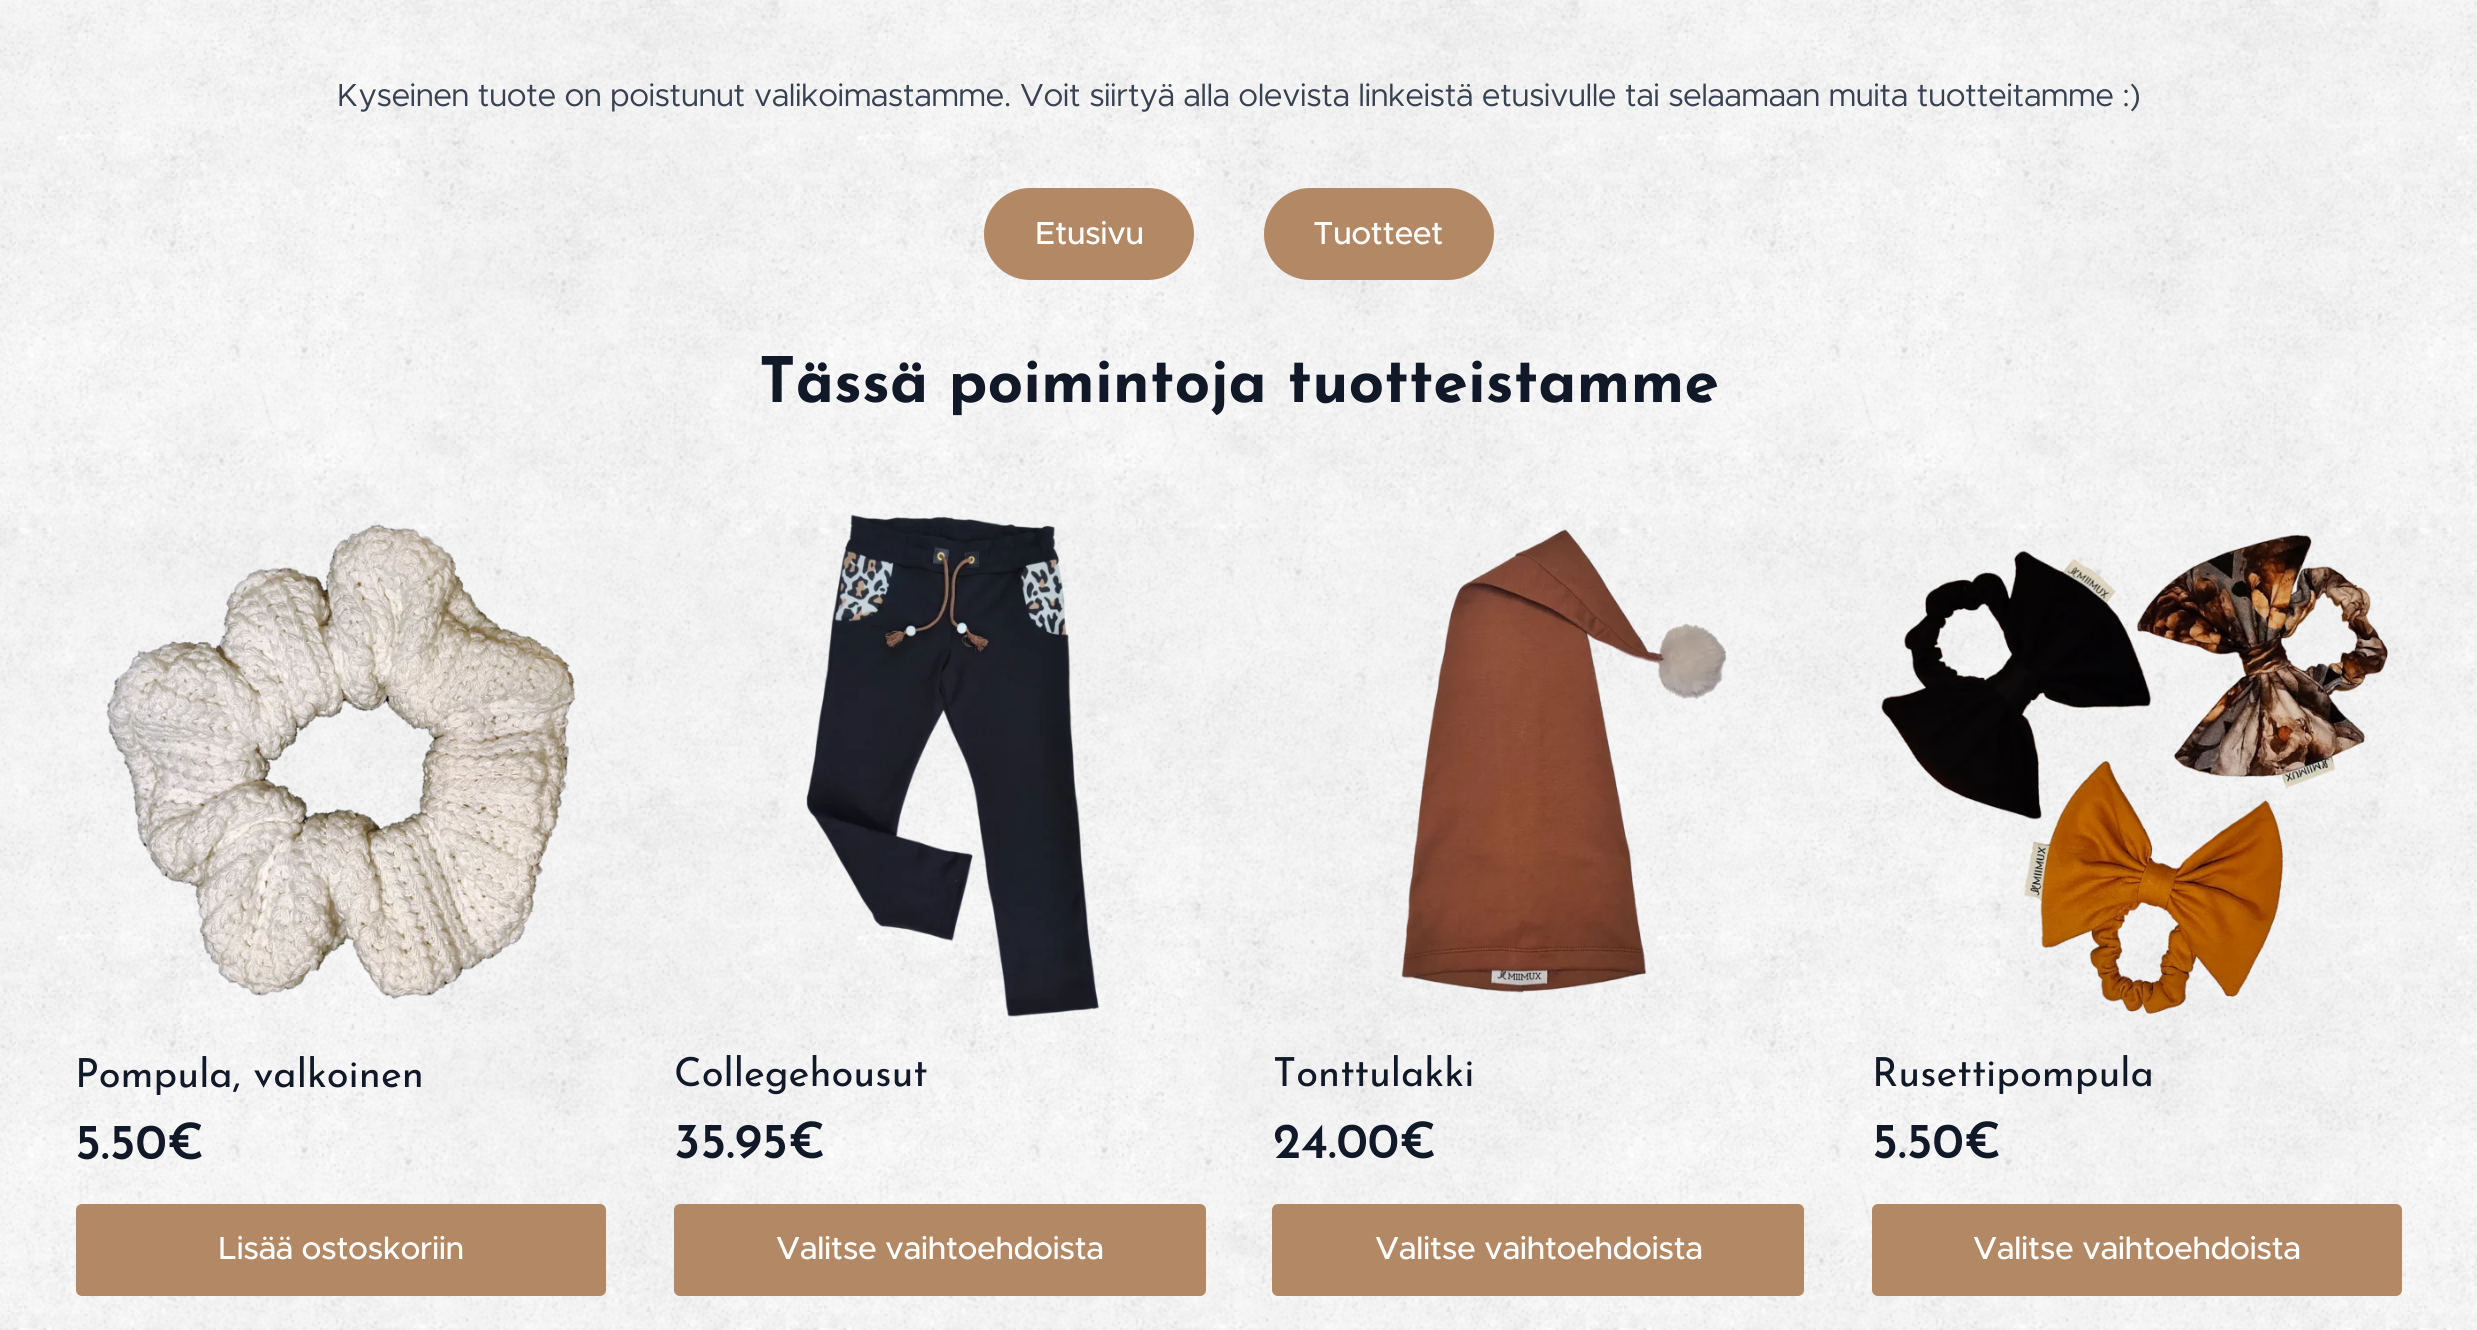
import math
import cairo

surface = cairo.ImageSurface(cairo.FORMAT_RGB24, 2477, 1330)
ctx = cairo.Context(surface)
options = cairo.FontOptions()
options.set_hint_metrics(cairo.HINT_METRICS_OFF)
options.set_hint_style(cairo.HINT_STYLE_NONE)
ctx.set_font_options(options)
ctx.set_miter_limit(4)


def set_color(code):
    ctx.set_source_rgb(*(v / 255 for v in bytes.fromhex(code[-6:])))


def draw_text(x, y, s, family, size, color, bold=False, italic=False):
    ctx.select_font_face(family, cairo.FONT_SLANT_ITALIC if italic else cairo.FONT_SLANT_NORMAL, cairo.FONT_WEIGHT_BOLD if bold else cairo.FONT_WEIGHT_NORMAL)
    ctx.set_font_size(size)
    set_color(color)
    ctx.move_to(x, y)
    ctx.show_text(s)


def rounded_rect(x, y, w, h, r):
    ctx.new_sub_path()
    for i, (u, v) in enumerate([(x + w - r, y + h - r), (x + r, y + h - r), (x + r, y + r), (x + w - r, y + r)]):
        ctx.arc(u, v, r, i * math.pi / 2, (i + 1) * math.pi / 2)
    ctx.close_path()


def draw_image(path, x, y, w, h):
    ctx.save()
    ctx.set_source_surface(cairo.ImageSurface.create_from_png(path), x, y)
    ctx.rectangle(x, y, w, h)
    ctx.fill()
    ctx.restore()


set_color("#ffffff")
ctx.paint()
draw_image("assets/img1.png", 0, 0, 2477, 1330)
draw_text(337, 106, "Kyseinen tuote on poistunut valikoimastamme. Voit siirtyä alla olevista linkeistä etusivulle tai selaamaan muita tuotteitamme :)", "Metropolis", 32, "#374151")
set_color("#b38865")
rounded_rect(984, 188, 210, 92, 46)
ctx.fill()
draw_text(1035, 244, "Etusivu", "Metropolis Medium", 32, "#ffffff")
set_color("#b38865")
rounded_rect(1264, 188, 230, 92, 46)
ctx.fill()
draw_text(1313, 244, "Tuotteet", "Metropolis Medium", 32, "#ffffff")
draw_text(759, 402, "Tässä poimintoja tuotteistamme", "Josefin Sans Thin", 62.5, "#111827")
draw_image("assets/img2.png", 106, 524, 470, 476)
draw_text(75, 1087, "Pompula, valkoinen", "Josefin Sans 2 Thin", 40, "#111827")
draw_text(75, 1159, "5.50€", "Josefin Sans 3 Thin", 50, "#111827")
set_color("#b38865")
rounded_rect(76, 1204, 530, 92, 6)
ctx.fill()
draw_text(218, 1259, "Lisää ostoskoriin", "Metropolis Medium", 32, "#ffffff")
draw_image("assets/img3.png", 806, 514, 293, 503)
draw_text(674, 1086, "Collegehousut", "Josefin Sans 2 Thin", 40, "#111827")
draw_text(674, 1158, "35.95€", "Josefin Sans 3 Thin", 50, "#111827")
set_color("#b38865")
rounded_rect(674, 1204, 532, 92, 6)
ctx.fill()
draw_text(776, 1259, "Valitse vaihtoehdoista", "Metropolis Medium", 32, "#ffffff")
draw_image("assets/img4.png", 1401, 529, 326, 464)
draw_text(1273, 1086, "Tonttulakki", "Josefin Sans 2 Thin", 40, "#111827")
draw_text(1273, 1158, "24.00€", "Josefin Sans 3 Thin", 50, "#111827")
set_color("#b38865")
rounded_rect(1272, 1204, 532, 92, 6)
ctx.fill()
draw_text(1375, 1259, "Valitse vaihtoehdoista", "Metropolis Medium", 32, "#ffffff")
draw_image("assets/img5.png", 1881, 534, 507, 480)
draw_text(1872, 1086, "Rusettipompula", "Josefin Sans 2 Thin", 40, "#111827")
draw_text(1872, 1158, "5.50€", "Josefin Sans 3 Thin", 50, "#111827")
set_color("#b38865")
rounded_rect(1872, 1204, 530, 92, 6)
ctx.fill()
draw_text(1973, 1259, "Valitse vaihtoehdoista", "Metropolis Medium", 32, "#ffffff")
surface.write_to_png("output.png")
